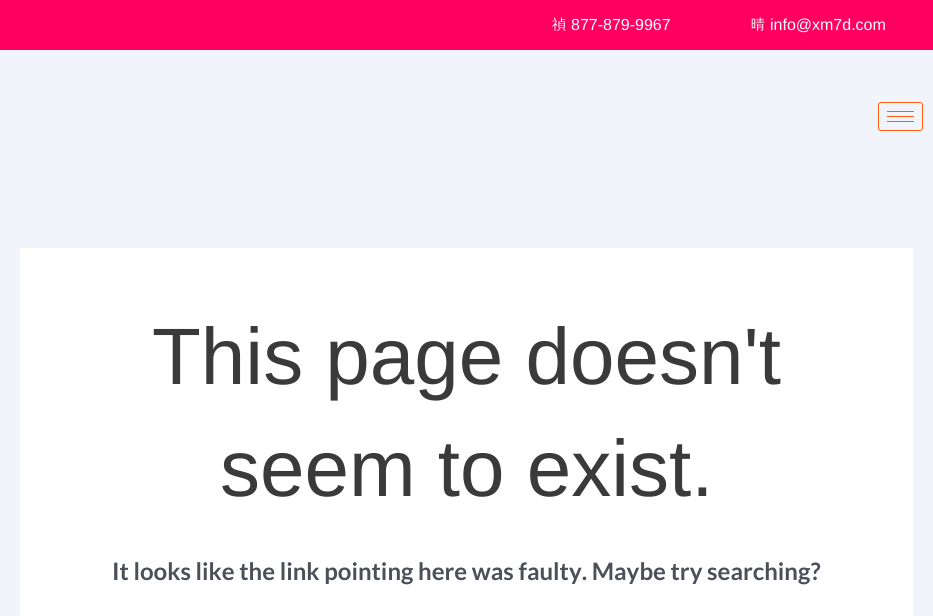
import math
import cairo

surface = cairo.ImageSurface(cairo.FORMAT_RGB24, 933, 616)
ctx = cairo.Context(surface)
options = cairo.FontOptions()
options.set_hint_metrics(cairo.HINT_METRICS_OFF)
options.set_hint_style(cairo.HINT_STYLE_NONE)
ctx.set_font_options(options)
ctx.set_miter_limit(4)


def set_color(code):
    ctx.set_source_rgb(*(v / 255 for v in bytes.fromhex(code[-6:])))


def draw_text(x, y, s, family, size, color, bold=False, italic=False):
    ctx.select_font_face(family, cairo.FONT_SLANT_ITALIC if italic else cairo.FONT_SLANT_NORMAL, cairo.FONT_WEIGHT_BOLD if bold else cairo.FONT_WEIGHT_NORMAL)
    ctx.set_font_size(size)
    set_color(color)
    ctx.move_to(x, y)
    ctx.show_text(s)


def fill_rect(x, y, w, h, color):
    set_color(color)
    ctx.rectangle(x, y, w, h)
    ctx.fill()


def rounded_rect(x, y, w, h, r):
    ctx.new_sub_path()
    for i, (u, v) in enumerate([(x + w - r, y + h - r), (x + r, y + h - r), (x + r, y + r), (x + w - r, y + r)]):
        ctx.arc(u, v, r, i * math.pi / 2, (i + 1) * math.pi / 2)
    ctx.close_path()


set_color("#f1f4fa")
ctx.paint()
fill_rect(0, 0, 933, 50, "#ff0060")
draw_text(552, 29, "禎", "WenQuanYi Zen Hei Medium", 14, "#ffffff")
draw_text(571, 30, "877-879-9967", "Liberation Sans", 16, "#ffffff")
draw_text(751, 29, "晴", "WenQuanYi Zen Hei Medium", 14, "#ffffff")
draw_text(770, 30, "info@xm7d.com", "Liberation Sans", 16, "#ffffff")
rounded_rect(878.5, 102.5, 44, 28, 2.5)
set_color("#ff5e13")
ctx.set_line_width(1)
ctx.stroke()
fill_rect(887, 111, 27, 1, "#ff5e13")
fill_rect(887, 116, 27, 1, "#ff5e13")
fill_rect(887, 121, 27, 1, "#ff5e13")
fill_rect(20, 248, 893, 368, "#ffffff")
draw_text(152, 384, "This page doesn't", "Liberation Sans", 80, "#3a3a3a")
draw_text(220, 496, "seem to exist.", "Liberation Sans", 80, "#3a3a3a")
draw_text(112, 580, "It looks like the link pointing here was faulty. Maybe try searching?", "Lato", 24, "#4b4f58", bold=True)
surface.write_to_png("output.png")
